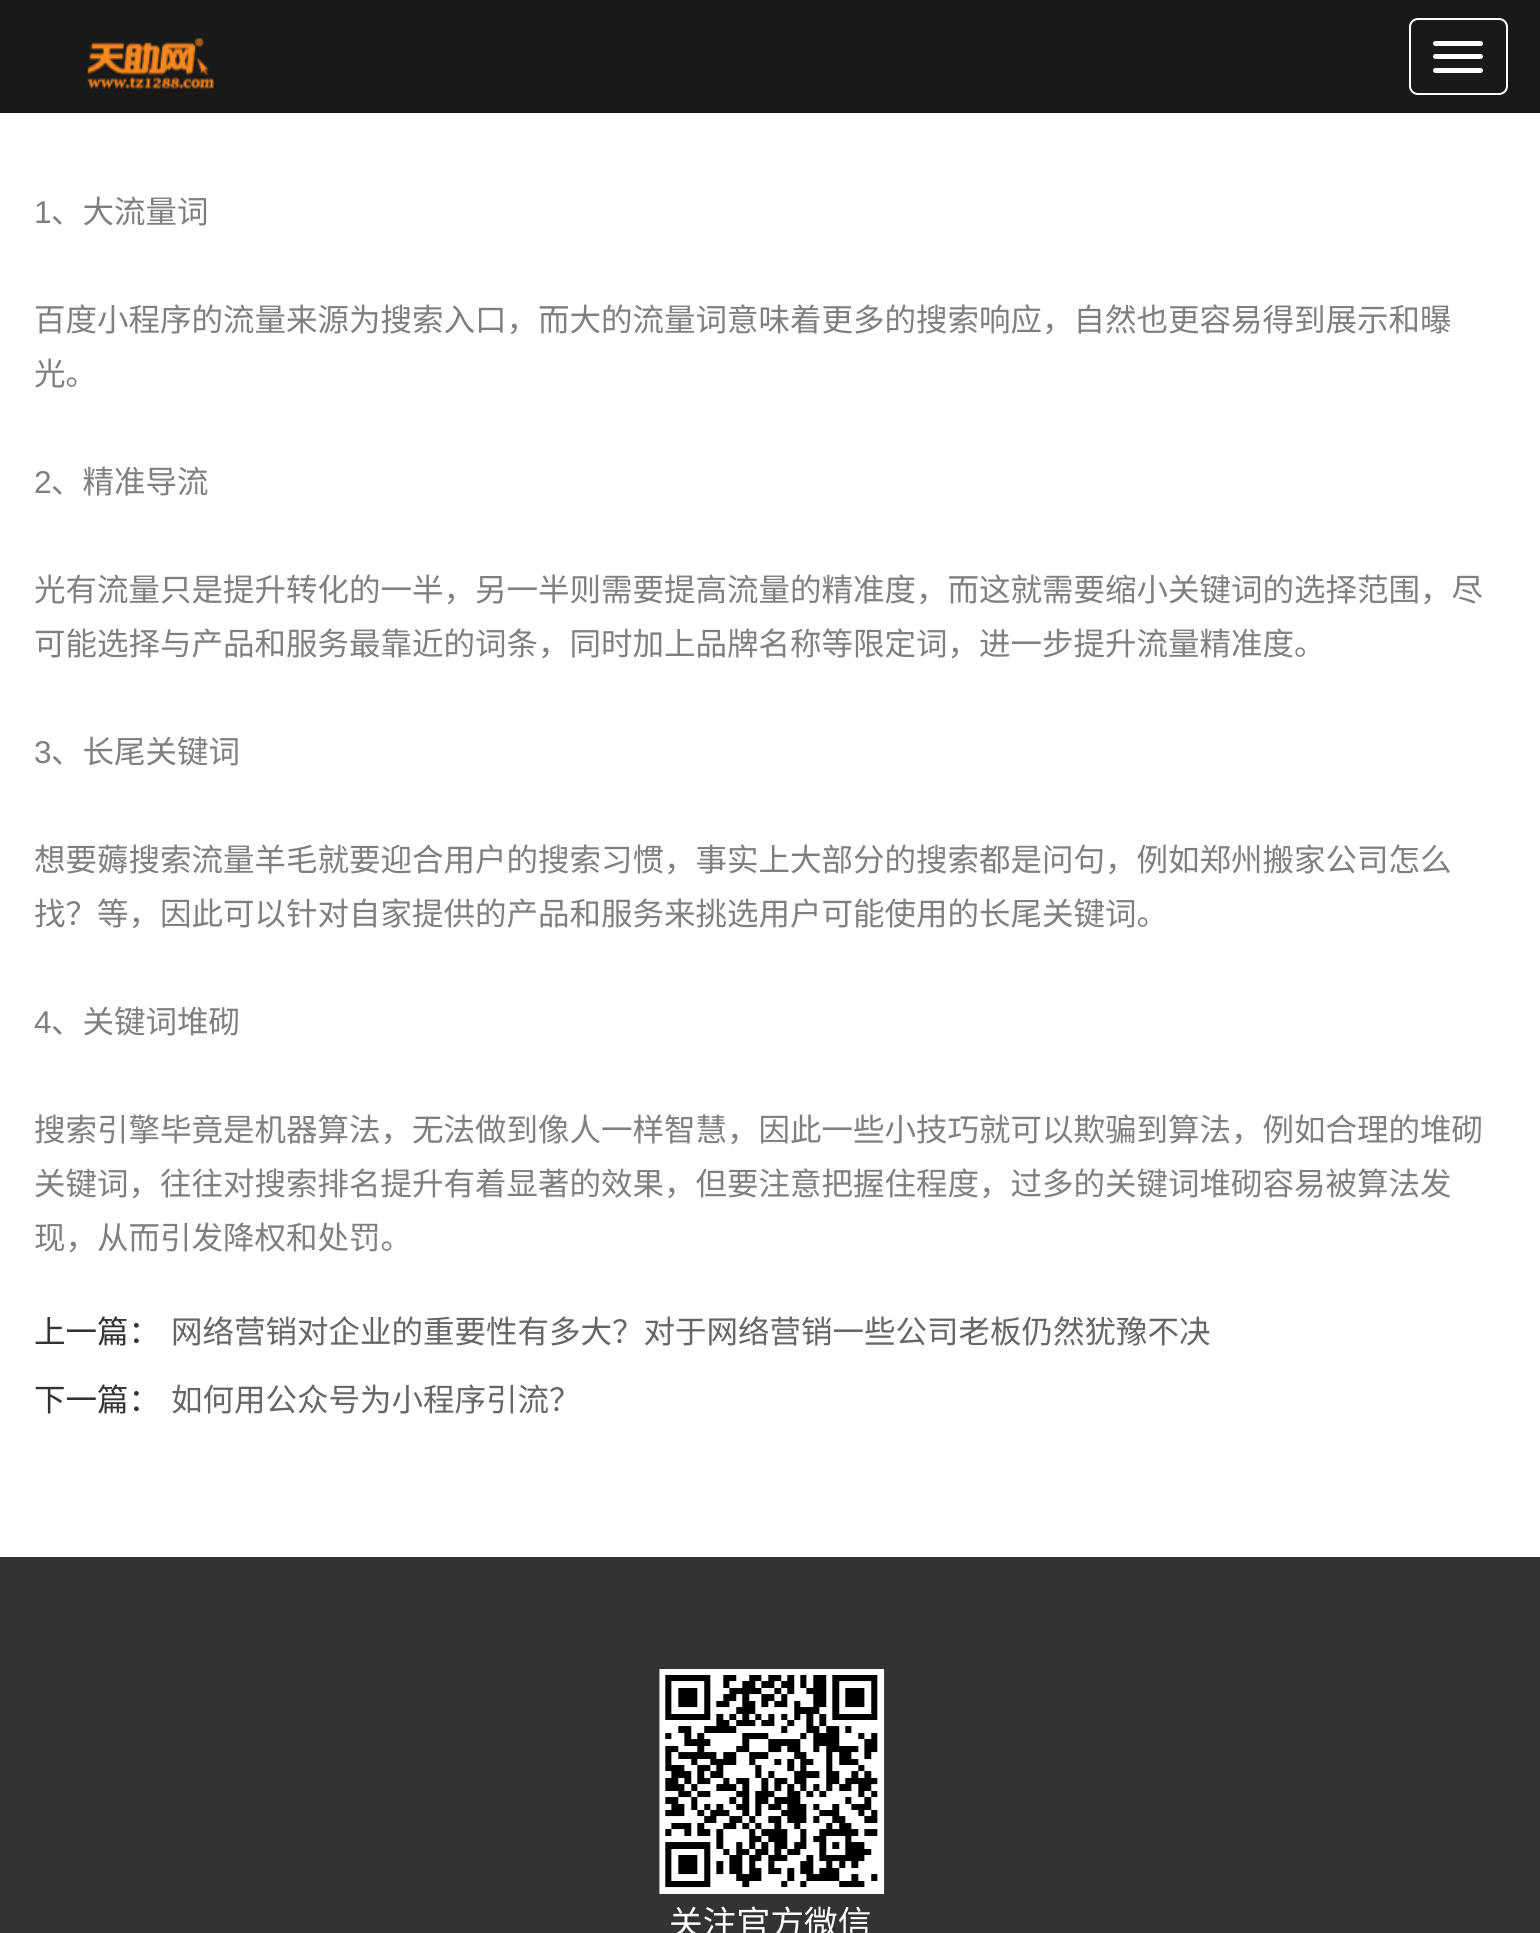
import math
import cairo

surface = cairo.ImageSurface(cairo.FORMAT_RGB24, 1540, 1933)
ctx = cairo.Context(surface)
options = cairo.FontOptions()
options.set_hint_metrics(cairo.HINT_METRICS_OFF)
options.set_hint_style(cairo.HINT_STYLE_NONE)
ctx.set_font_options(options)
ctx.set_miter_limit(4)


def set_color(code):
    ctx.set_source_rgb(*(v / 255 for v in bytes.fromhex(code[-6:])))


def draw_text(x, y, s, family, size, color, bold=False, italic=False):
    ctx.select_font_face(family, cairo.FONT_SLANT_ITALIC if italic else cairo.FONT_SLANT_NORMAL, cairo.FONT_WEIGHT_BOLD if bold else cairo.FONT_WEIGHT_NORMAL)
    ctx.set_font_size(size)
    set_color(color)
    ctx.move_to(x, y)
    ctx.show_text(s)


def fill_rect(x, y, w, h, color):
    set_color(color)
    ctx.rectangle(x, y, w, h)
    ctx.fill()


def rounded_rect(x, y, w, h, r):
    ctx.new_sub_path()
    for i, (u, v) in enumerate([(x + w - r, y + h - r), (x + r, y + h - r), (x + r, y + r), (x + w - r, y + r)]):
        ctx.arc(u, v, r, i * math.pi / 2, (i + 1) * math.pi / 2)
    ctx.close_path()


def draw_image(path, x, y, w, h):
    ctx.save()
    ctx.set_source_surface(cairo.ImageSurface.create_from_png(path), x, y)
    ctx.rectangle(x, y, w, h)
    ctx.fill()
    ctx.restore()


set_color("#ffffff")
ctx.paint()
fill_rect(0, 0, 1540, 113, "#191919")
draw_image("assets/img1.png", 87, 38, 127, 51)
rounded_rect(1410, 19, 97, 75, 8)
set_color("#ffffff")
ctx.stroke()
rounded_rect(1433, 41, 50, 5, 2.5)
ctx.fill()
rounded_rect(1433, 54, 50, 5, 2.5)
ctx.fill()
rounded_rect(1433, 68, 50, 5, 2.5)
ctx.fill()
draw_text(34, 223, "1", "Liberation Sans", 31.5, "#7f7f7f")
draw_text(51, 223, "、大流量词", "Noto Sans CJK SC", 31.5, "#7f7f7f")
draw_text(34, 331, "百度小程序的流量来源为搜索入口，而大的流量词意味着更多的搜索响应，自然也更容易得到展示和曝", "Noto Sans CJK SC", 31.5, "#7f7f7f")
draw_text(34, 385, "光。", "Noto Sans CJK SC", 31.5, "#7f7f7f")
draw_text(34, 493, "2", "Liberation Sans", 31.5, "#7f7f7f")
draw_text(51, 493, "、精准导流", "Noto Sans CJK SC", 31.5, "#7f7f7f")
draw_text(34, 601, "光有流量只是提升转化的一半，另一半则需要提高流量的精准度，而这就需要缩小关键词的选择范围，尽", "Noto Sans CJK SC", 31.5, "#7f7f7f")
draw_text(34, 655, "可能选择与产品和服务最靠近的词条，同时加上品牌名称等限定词，进一步提升流量精准度。", "Noto Sans CJK SC", 31.5, "#7f7f7f")
draw_text(34, 763, "3", "Liberation Sans", 31.5, "#7f7f7f")
draw_text(51, 763, "、长尾关键词", "Noto Sans CJK SC", 31.5, "#7f7f7f")
draw_text(34, 871, "想要薅搜索流量羊毛就要迎合用户的搜索习惯，事实上大部分的搜索都是问句，例如郑州搬家公司怎么", "Noto Sans CJK SC", 31.5, "#7f7f7f")
draw_text(34, 925, "找？等，因此可以针对自家提供的产品和服务来挑选用户可能使用的长尾关键词。", "Noto Sans CJK SC", 31.5, "#7f7f7f")
draw_text(34, 1033, "4", "Liberation Sans", 31.5, "#7f7f7f")
draw_text(51, 1033, "、关键词堆砌", "Noto Sans CJK SC", 31.5, "#7f7f7f")
draw_text(34, 1141, "搜索引擎毕竟是机器算法，无法做到像人一样智慧，因此一些小技巧就可以欺骗到算法，例如合理的堆砌", "Noto Sans CJK SC", 31.5, "#7f7f7f")
draw_text(34, 1195, "关键词，往往对搜索排名提升有着显著的效果，但要注意把握住程度，过多的关键词堆砌容易被算法发", "Noto Sans CJK SC", 31.5, "#7f7f7f")
draw_text(34, 1249, "现，从而引发降权和处罚。", "Noto Sans CJK SC", 31.5, "#7f7f7f")
draw_text(34, 1343, "上一篇：", "Noto Sans CJK SC", 31.5, "#333333")
draw_text(171, 1343, "网络营销对企业的重要性有多大？对于网络营销一些公司老板仍然犹豫不决", "Noto Sans CJK SC", 31.5, "#666666")
draw_text(34, 1411, "下一篇：", "Noto Sans CJK SC", 31.5, "#333333")
draw_text(171, 1411, "如何用公众号为小程序引流？", "Noto Sans CJK SC", 31.5, "#666666")
fill_rect(0, 1557, 1540, 376, "#333333")
draw_image("assets/img2.png", 659, 1669, 226, 225)
draw_text(669, 1935, "关注官方微信", "Noto Sans CJK SC", 33.75, "#ffffff")
surface.write_to_png("output.png")
